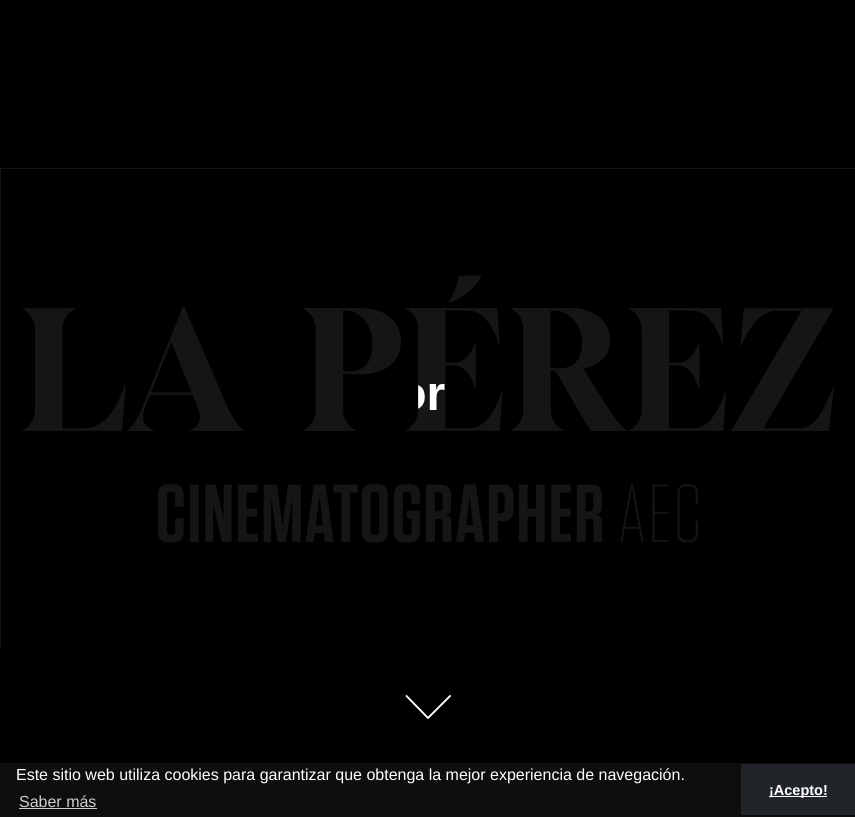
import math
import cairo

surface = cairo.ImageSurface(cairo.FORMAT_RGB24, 855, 817)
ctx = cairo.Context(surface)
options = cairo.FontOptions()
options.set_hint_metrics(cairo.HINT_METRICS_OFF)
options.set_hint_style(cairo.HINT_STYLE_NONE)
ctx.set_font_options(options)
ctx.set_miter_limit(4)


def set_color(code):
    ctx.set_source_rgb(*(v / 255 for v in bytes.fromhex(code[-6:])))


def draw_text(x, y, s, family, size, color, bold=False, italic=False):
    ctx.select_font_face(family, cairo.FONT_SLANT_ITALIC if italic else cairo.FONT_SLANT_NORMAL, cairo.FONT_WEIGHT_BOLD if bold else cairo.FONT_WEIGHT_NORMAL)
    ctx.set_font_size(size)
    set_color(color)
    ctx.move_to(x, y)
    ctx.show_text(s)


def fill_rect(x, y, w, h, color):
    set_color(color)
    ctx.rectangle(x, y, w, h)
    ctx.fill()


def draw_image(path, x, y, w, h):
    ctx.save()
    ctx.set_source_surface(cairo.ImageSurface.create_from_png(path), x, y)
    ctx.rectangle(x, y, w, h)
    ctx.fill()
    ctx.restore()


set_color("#ffffff")
ctx.paint()
fill_rect(0, 0, 855, 168, "#000000")
draw_image("assets/img1.png", 0, 168, 855, 481)
draw_image("assets/img2.png", 1, 169, 854, 480)
fill_rect(0, 649, 855, 114, "#000000")
ctx.new_path()
ctx.move_to(450, 696)
ctx.line_to(428, 718)
ctx.line_to(406.5, 696)
set_color("#ffffff")
ctx.set_line_width(1.9)
ctx.set_line_cap(cairo.LINE_CAP_ROUND)
ctx.set_line_join(cairo.LINE_JOIN_ROUND)
ctx.stroke()
fill_rect(0, 763, 855, 54, "#0e0e0e")
draw_text(16, 780, "Este sitio web utiliza cookies para garantizar que obtenga la mejor experiencia de navegación.", "Liberation Sans", 16, "#ffffff")
draw_text(19, 807, "Saber más", "Liberation Sans", 16, "#cfcfcf")
fill_rect(19, 808, 78, 1, "#cfcfcf")
fill_rect(741, 764, 114, 51, "#212529")
fill_rect(769, 796, 58, 1, "#ffffff")
draw_text(769, 795, "¡Acepto!", "Liberation Sans", 14.5, "#ffffff", bold=True)
surface.write_to_png("output.png")
